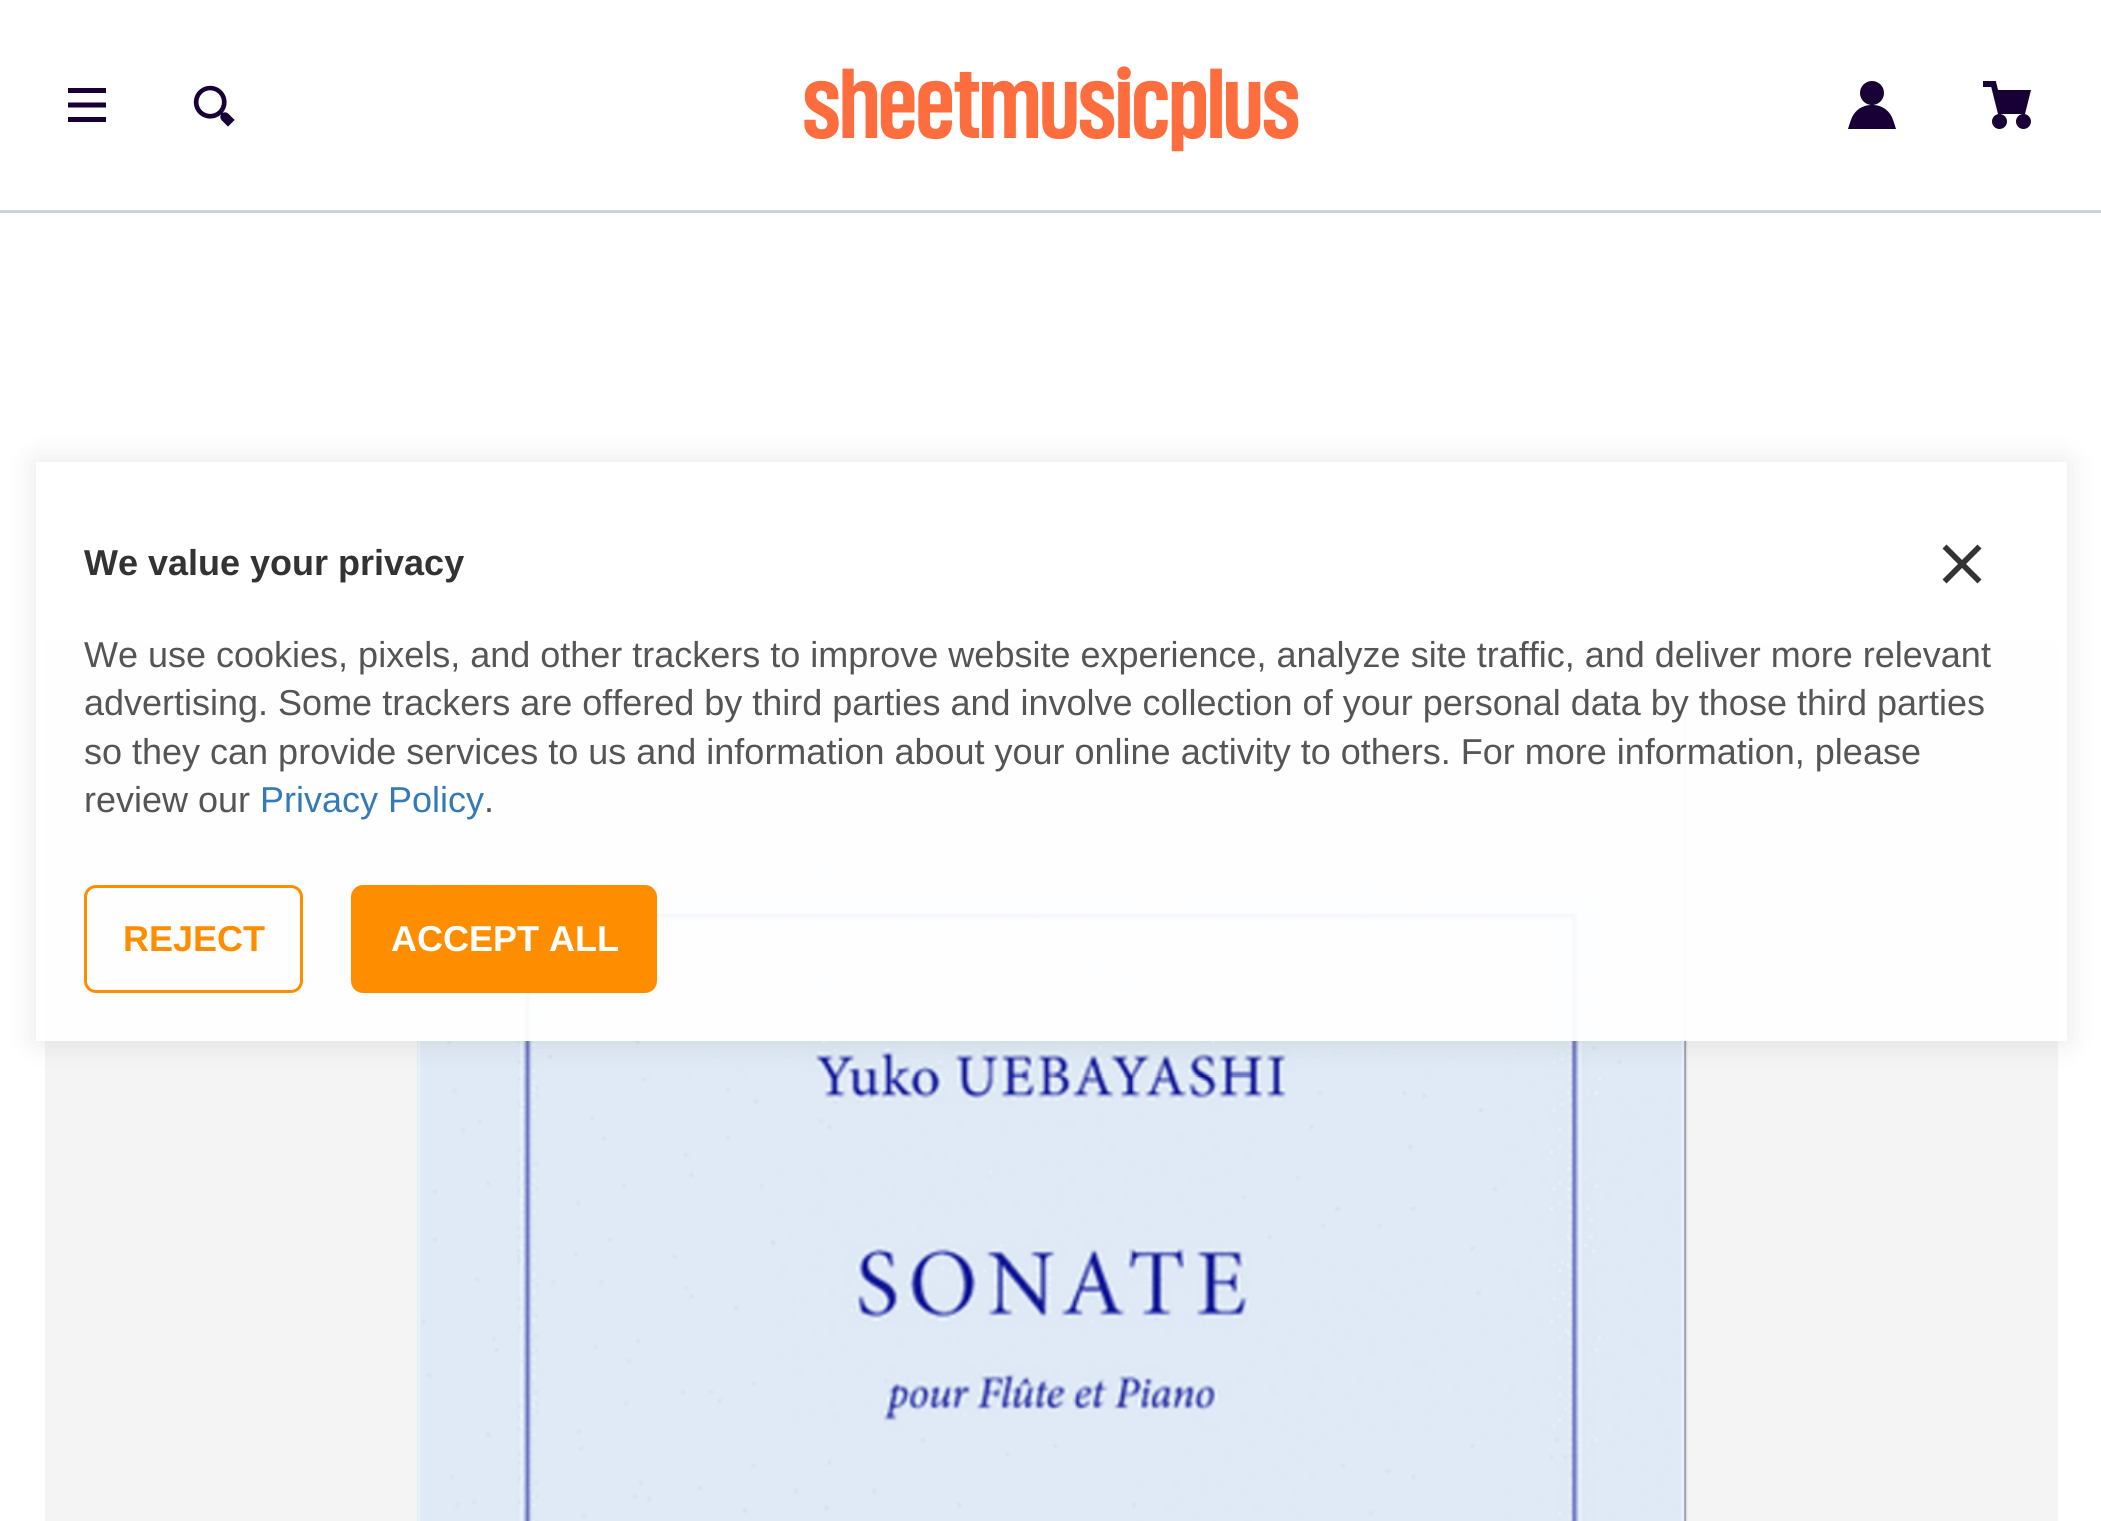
import math
import cairo

surface = cairo.ImageSurface(cairo.FORMAT_RGB24, 2101, 1521)
ctx = cairo.Context(surface)
options = cairo.FontOptions()
options.set_hint_metrics(cairo.HINT_METRICS_OFF)
options.set_hint_style(cairo.HINT_STYLE_NONE)
ctx.set_font_options(options)
ctx.set_miter_limit(4)


def set_color(code):
    ctx.set_source_rgb(*(v / 255 for v in bytes.fromhex(code[-6:])))


def draw_text(x, y, s, family, size, color, bold=False, italic=False):
    ctx.select_font_face(family, cairo.FONT_SLANT_ITALIC if italic else cairo.FONT_SLANT_NORMAL, cairo.FONT_WEIGHT_BOLD if bold else cairo.FONT_WEIGHT_NORMAL)
    ctx.set_font_size(size)
    set_color(color)
    ctx.move_to(x, y)
    ctx.show_text(s)


def fill_rect(x, y, w, h, color):
    set_color(color)
    ctx.rectangle(x, y, w, h)
    ctx.fill()


def rounded_rect(x, y, w, h, r):
    ctx.new_sub_path()
    for i, (u, v) in enumerate([(x + w - r, y + h - r), (x + r, y + h - r), (x + r, y + r), (x + w - r, y + r)]):
        ctx.arc(u, v, r, i * math.pi / 2, (i + 1) * math.pi / 2)
    ctx.close_path()


def draw_shadow(x, y, w, h, r, blur, alpha):
    ctx.push_group_with_content(cairo.CONTENT_ALPHA)
    ctx.set_operator(cairo.OPERATOR_SOURCE)
    for i in range(15, -16, -2):
        e = blur * i / 6
        if min(w, h) + 2 * e > 0:
            ctx.set_source_rgba(0, 0, 0, alpha * math.erfc((i - 1) / 8.5) / 2)
            rounded_rect(x - e, y - e, w + 2 * e, h + 2 * e, max(0, min(r + e + blur * .6, min(w, h) / 2 + e)))
            ctx.fill()
    ctx.mask(ctx.pop_group())


def draw_image(path, x, y, w, h):
    ctx.save()
    ctx.set_source_surface(cairo.ImageSurface.create_from_png(path), x, y)
    ctx.rectangle(x, y, w, h)
    ctx.fill()
    ctx.restore()


set_color("#ffffff")
ctx.paint()
fill_rect(0, 210, 2101, 3, "#ced2dc")
set_color("#180036")
ctx.new_path()
ctx.move_to(106, 88)
ctx.line_to(68, 88)
ctx.line_to(68, 93)
ctx.line_to(106, 93)
ctx.close_path()
ctx.move_to(68, 102.5)
ctx.line_to(106, 102.5)
ctx.line_to(106, 107.5)
ctx.line_to(68, 107.5)
ctx.close_path()
ctx.move_to(68, 117)
ctx.line_to(106, 117)
ctx.line_to(106, 122)
ctx.line_to(68, 122)
ctx.close_path()
ctx.fill()
draw_image("assets/img1.png", 193, 85, 42, 42)
draw_text(803, 138, "sheetmusicplus", "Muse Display", 102, "#fe6d3e")
draw_image("assets/img2.png", 1848, 81, 48, 48)
draw_image("assets/img3.png", 1983, 81, 48, 48)
fill_rect(45, 642, 2013, 879, "#f4f4f4")
draw_image("assets/img4.png", 417, 717, 1271, 804)
ctx.save()
ctx.set_fill_rule(cairo.FILL_RULE_EVEN_ODD)
ctx.new_path()
ctx.move_to(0, 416)
ctx.line_to(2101, 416)
ctx.line_to(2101, 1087)
ctx.line_to(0, 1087)
ctx.close_path()
ctx.move_to(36, 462)
ctx.line_to(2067, 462)
ctx.line_to(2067, 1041)
ctx.line_to(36, 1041)
ctx.close_path()
ctx.clip()
set_color("#000000")
draw_shadow(36, 462, 2031, 579, 0, 15, 0.1)
ctx.restore()
ctx.set_source_rgba(1, 1, 1, 0.95)
ctx.rectangle(45, 642, 2013, 399)
ctx.fill()
draw_text(84, 575, "We value your privacy", "Liberation Sans", 36, "#333333", bold=True)
ctx.new_path()
ctx.move_to(1958, 564)
ctx.line_to(1942.5, 579.5)
ctx.line_to(1946.5, 583.5)
ctx.line_to(1962, 568)
ctx.line_to(1977.5, 583.5)
ctx.line_to(1981.5, 579.5)
ctx.line_to(1966, 564)
ctx.line_to(1981.5, 548.5)
ctx.line_to(1977.5, 544.5)
ctx.line_to(1962, 560)
ctx.line_to(1946.5, 544.5)
ctx.line_to(1942.5, 548.5)
ctx.close_path()
ctx.fill()
draw_text(84, 667, "We use cookies, pixels, and other trackers to improve website experience, analyze site traffic, and deliver more relevant", "Liberation Sans", 36, "#555555")
draw_text(84, 715, "advertising. Some trackers are offered by third parties and involve collection of your personal data by those third parties", "Liberation Sans", 36, "#555555")
draw_text(84, 764, "so they can provide services to us and information about your online activity to others. For more information, please", "Liberation Sans", 36, "#555555")
draw_text(84, 812, "review our", "Liberation Sans", 36, "#555555")
draw_text(260, 812, "Privacy Policy", "Liberation Sans", 36, "#337ab7")
draw_text(484, 812, ".", "Liberation Sans", 36, "#555555")
rounded_rect(85.5, 886.5, 216, 105, 10.5)
set_color("#ff8d00")
ctx.set_line_width(3)
ctx.stroke()
draw_text(123, 951, "REJECT", "Liberation Sans", 36, "#ff8d00", bold=True)
rounded_rect(351, 885, 306, 108, 12)
ctx.fill()
draw_text(391, 951, "ACCEPT ALL", "Liberation Sans", 36, "#ffffff", bold=True)
surface.write_to_png("output.png")
